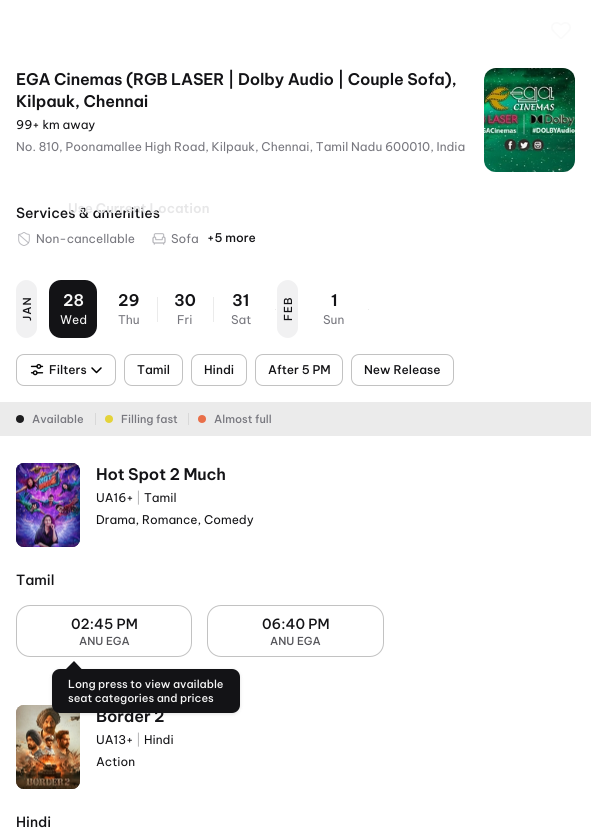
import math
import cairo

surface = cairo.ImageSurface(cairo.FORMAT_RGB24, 591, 838)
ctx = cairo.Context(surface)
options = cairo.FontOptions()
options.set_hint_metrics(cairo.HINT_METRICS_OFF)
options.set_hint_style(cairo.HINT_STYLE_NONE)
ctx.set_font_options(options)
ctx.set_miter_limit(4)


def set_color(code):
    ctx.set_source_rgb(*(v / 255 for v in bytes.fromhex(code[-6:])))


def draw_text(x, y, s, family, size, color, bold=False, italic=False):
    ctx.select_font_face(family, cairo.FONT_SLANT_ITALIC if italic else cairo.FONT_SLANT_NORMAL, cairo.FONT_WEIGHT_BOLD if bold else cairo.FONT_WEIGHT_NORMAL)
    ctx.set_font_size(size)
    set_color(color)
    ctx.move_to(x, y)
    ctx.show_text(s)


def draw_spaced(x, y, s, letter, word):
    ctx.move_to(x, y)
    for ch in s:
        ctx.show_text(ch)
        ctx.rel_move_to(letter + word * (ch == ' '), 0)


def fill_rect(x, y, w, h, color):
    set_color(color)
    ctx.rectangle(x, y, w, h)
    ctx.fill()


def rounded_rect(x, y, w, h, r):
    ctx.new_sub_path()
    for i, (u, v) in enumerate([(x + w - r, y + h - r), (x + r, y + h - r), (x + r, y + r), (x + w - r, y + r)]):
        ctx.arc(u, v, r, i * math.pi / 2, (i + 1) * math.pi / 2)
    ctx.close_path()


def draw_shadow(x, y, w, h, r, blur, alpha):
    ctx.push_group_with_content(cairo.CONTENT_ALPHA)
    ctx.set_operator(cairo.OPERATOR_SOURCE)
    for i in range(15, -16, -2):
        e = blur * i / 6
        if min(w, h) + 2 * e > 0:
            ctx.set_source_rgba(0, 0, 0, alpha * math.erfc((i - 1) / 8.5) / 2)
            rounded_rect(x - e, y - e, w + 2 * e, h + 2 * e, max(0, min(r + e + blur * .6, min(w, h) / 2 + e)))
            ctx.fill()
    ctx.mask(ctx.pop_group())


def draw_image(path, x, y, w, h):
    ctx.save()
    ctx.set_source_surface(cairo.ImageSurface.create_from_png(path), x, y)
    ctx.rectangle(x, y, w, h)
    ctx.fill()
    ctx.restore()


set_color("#ffffff")
ctx.paint()
draw_image("assets/img1.png", 551, 22, 20, 17)
ctx.select_font_face("Be Vietnam Pro SemiBold")
ctx.set_font_size(16)
set_color("#131316")
draw_spaced(16, 85, "EGA Cinemas (RGB LASER | Dolby Audio | Couple Sofa),", -0.15, 0)
draw_spaced(16, 107, "Kilpauk, Chennai", -0.15, 0)
draw_text(16, 129, "99+ km away", "Be Vietnam Pro", 12, "#131316")
draw_text(16, 151, "No. 810, Poonamallee High Road, Kilpauk, Chennai, Tamil Nadu 600010, India", "Be Vietnam Pro", 12, "#77777e")
draw_image("assets/img2.png", 484, 68, 91, 104)
draw_text(16, 218, "Services & amenities", "Be Vietnam Pro Medium", 14, "#131316")
draw_image("assets/img3.png", 18, 232, 12, 14)
draw_text(36, 243, "Non-cancellable", "Be Vietnam Pro", 12, "#77777e")
draw_image("assets/img4.png", 152, 233, 14, 12)
draw_text(171, 243, "Sofa", "Be Vietnam Pro", 12, "#77777e")
draw_text(207, 242, "+5 more", "Be Vietnam Pro Medium", 12, "#131316")
set_color("#f1f1f2")
ctx.new_path()
ctx.move_to(26, 338)
ctx.curve_to(21, 338, 16, 333, 16, 328)
ctx.line_to(16, 290)
ctx.curve_to(16, 285, 21, 280, 26, 280)
ctx.curve_to(32, 280, 37, 285, 37, 290)
ctx.line_to(37, 328)
ctx.curve_to(37, 333, 32, 338, 26, 338)
ctx.close_path()
ctx.fill()
ctx.set_font_size(11)
set_color("#131316")
ctx.save()
ctx.translate(31, 321)
ctx.rotate(-90 * math.pi / 180)
draw_spaced(0, 0, "JAN", 1, 0)
ctx.restore()
rounded_rect(49, 280, 48, 58, 12)
ctx.fill()
ctx.select_font_face("Be Vietnam Pro SemiBold")
ctx.set_font_size(16)
set_color("#f7f7f7")
draw_spaced(63, 306, "28", -0.15, 0)
draw_text(60, 324, "Wed", "Be Vietnam Pro", 12, "#f7f7f7")
ctx.select_font_face("Be Vietnam Pro SemiBold")
ctx.set_font_size(16)
set_color("#131316")
draw_spaced(118, 306, "29", -0.15, 0)
draw_text(118, 324, "Thu", "Be Vietnam Pro", 12, "#77777e")
fill_rect(157, 297, 1, 25, "#ebebeb")
ctx.select_font_face("Be Vietnam Pro SemiBold")
ctx.set_font_size(16)
set_color("#131316")
draw_spaced(174, 306, "30", -0.15, 0)
draw_text(177, 324, "Fri", "Be Vietnam Pro", 12, "#77777e")
fill_rect(213, 297, 1, 25, "#ebebeb")
ctx.select_font_face("Be Vietnam Pro SemiBold")
ctx.set_font_size(16)
set_color("#131316")
draw_spaced(232, 306, "31", -0.15, 0)
draw_text(231, 324, "Sat", "Be Vietnam Pro", 12, "#77777e")
fill_rect(275, 309, 1, 1, "#ebebeb")
set_color("#f1f1f2")
ctx.new_path()
ctx.move_to(288, 338)
ctx.curve_to(282, 338, 277, 333, 277, 328)
ctx.line_to(277, 290)
ctx.curve_to(277, 285, 282, 280, 288, 280)
ctx.curve_to(293, 280, 298, 285, 298, 290)
ctx.line_to(298, 328)
ctx.curve_to(298, 333, 293, 338, 288, 338)
ctx.close_path()
ctx.fill()
ctx.select_font_face("Be Vietnam Pro Medium")
ctx.set_font_size(11)
set_color("#131316")
ctx.save()
ctx.translate(292, 321)
ctx.rotate(-90 * math.pi / 180)
draw_spaced(0, 0, "FEB", 1, 0)
ctx.restore()
ctx.select_font_face("Be Vietnam Pro SemiBold")
ctx.set_font_size(16)
draw_spaced(331, 306, "1", -0.15, 0)
draw_text(323, 324, "Sun", "Be Vietnam Pro", 12, "#77777e")
fill_rect(368, 309, 1, 1, "#ebebeb")
rounded_rect(16.5, 354.5, 99, 31, 7.5)
set_color("#c2c2c2")
ctx.set_line_width(1)
ctx.stroke()
draw_image("assets/img5.png", 30, 363, 14, 13)
draw_text(49, 374, "Filters", "Be Vietnam Pro Medium", 12, "#131316")
ctx.new_path()
ctx.move_to(92, 368)
ctx.line_to(96.5, 372.5)
ctx.line_to(101, 368)
set_color("#000000")
ctx.set_line_width(1.5)
ctx.set_line_cap(cairo.LINE_CAP_ROUND)
ctx.set_line_join(cairo.LINE_JOIN_ROUND)
ctx.stroke()
rounded_rect(124.5, 354.5, 58, 31, 7.5)
set_color("#c2c2c2")
ctx.set_line_width(1)
ctx.set_line_cap(cairo.LINE_CAP_BUTT)
ctx.set_line_join(cairo.LINE_JOIN_MITER)
ctx.stroke()
draw_text(137, 374, "Tamil", "Be Vietnam Pro Medium", 12, "#131316")
rounded_rect(191.5, 354.5, 55, 31, 7.5)
set_color("#c2c2c2")
ctx.stroke()
draw_text(204, 374, "Hindi", "Be Vietnam Pro Medium", 12, "#131316")
rounded_rect(255.5, 354.5, 87, 31, 7.5)
set_color("#c2c2c2")
ctx.stroke()
draw_text(268, 374, "After 5 PM", "Be Vietnam Pro Medium", 12, "#131316")
rounded_rect(351.5, 354.5, 102, 31, 7.5)
set_color("#c2c2c2")
ctx.stroke()
draw_text(364, 374, "New Release", "Be Vietnam Pro Medium", 12, "#131316")
fill_rect(0, 402, 591, 34, "#ebebeb")
set_color("#1e1e20")
ctx.new_path()
ctx.arc(20, 419, 4, 0, 2 * math.pi)
ctx.fill()
draw_text(32, 423, "Available", "Be Vietnam Pro Medium", 11, "#77777e")
fill_rect(95, 413, 1, 12, "#d8d8d8")
set_color("#e4d33a")
ctx.new_path()
ctx.arc(109, 419, 4, 0, 2 * math.pi)
ctx.fill()
draw_text(121, 423, "Filling fast", "Be Vietnam Pro Medium", 11, "#77777e")
fill_rect(188, 413, 1, 12, "#d8d8d8")
set_color("#e96f49")
ctx.new_path()
ctx.arc(202, 419, 4, 0, 2 * math.pi)
ctx.fill()
draw_text(214, 423, "Almost full", "Be Vietnam Pro Medium", 11, "#77777e")
draw_image("assets/img6.png", 16, 463, 64, 84)
draw_image("assets/img7.png", 16, 463, 64, 84)
ctx.select_font_face("Be Vietnam Pro SemiBold")
ctx.set_font_size(16)
set_color("#131316")
draw_spaced(96, 480, "Hot Spot 2 Much", -0.15, 0)
draw_text(96, 502, "UA16+", "Be Vietnam Pro", 12, "#131316")
draw_text(136, 502, "|", "Be Vietnam Pro", 12, "#b8b8b9")
draw_text(144, 502, "Tamil", "Be Vietnam Pro", 12, "#131316")
draw_text(96, 524, "Drama, Romance, Comedy", "Be Vietnam Pro", 12, "#131316")
draw_text(16, 585, "Tamil", "Be Vietnam Pro Medium", 14, "#131316")
rounded_rect(16.5, 605.5, 175, 51, 13.5)
set_color("#c2c2c2")
ctx.stroke()
draw_text(71, 629, "02:45 PM", "Be Vietnam Pro Medium", 14, "#131316")
draw_text(79, 645, "ANU EGA", "Be Vietnam Pro Medium", 11, "#545459")
draw_image("assets/img8.png", 16, 705, 64, 84)
draw_image("assets/img9.png", 16, 705, 64, 84)
set_color("#000000")
draw_shadow(52, 670, 188, 44, 8, 2, 0.12)
set_color("#131316")
rounded_rect(52, 669, 188, 44, 8)
ctx.fill()
draw_text(68, 688, "Long press to view available", "Be Vietnam Pro Medium", 11, "#f7f7f7")
set_color("#131316")
ctx.new_path()
ctx.move_to(74, 661)
ctx.line_to(83, 670.5)
ctx.line_to(74, 679.5)
ctx.line_to(64.5, 670.5)
ctx.close_path()
ctx.fill()
draw_text(68, 702, "seat categories and prices", "Be Vietnam Pro Medium", 11, "#f7f7f7")
rounded_rect(207.5, 605.5, 176, 51, 13.5)
set_color("#c2c2c2")
ctx.stroke()
draw_text(262, 629, "06:40 PM", "Be Vietnam Pro Medium", 14, "#131316")
draw_text(270, 645, "ANU EGA", "Be Vietnam Pro Medium", 11, "#545459")
ctx.select_font_face("Be Vietnam Pro SemiBold")
ctx.set_font_size(16)
set_color("#131316")
draw_spaced(96, 722, "Border 2", -0.15, 0)
draw_text(96, 744, "UA13+", "Be Vietnam Pro", 12, "#131316")
draw_text(136, 744, "|", "Be Vietnam Pro", 12, "#b8b8b9")
draw_text(144, 744, "Hindi", "Be Vietnam Pro", 12, "#131316")
draw_text(96, 766, "Action", "Be Vietnam Pro", 12, "#131316")
draw_text(16, 827, "Hindi", "Be Vietnam Pro Medium", 14, "#131316")
draw_text(68, 213, "Use Current Location", "Be Vietnam Pro SemiBold", 13.25, "#e7e7e8")
surface.write_to_png("output.png")
